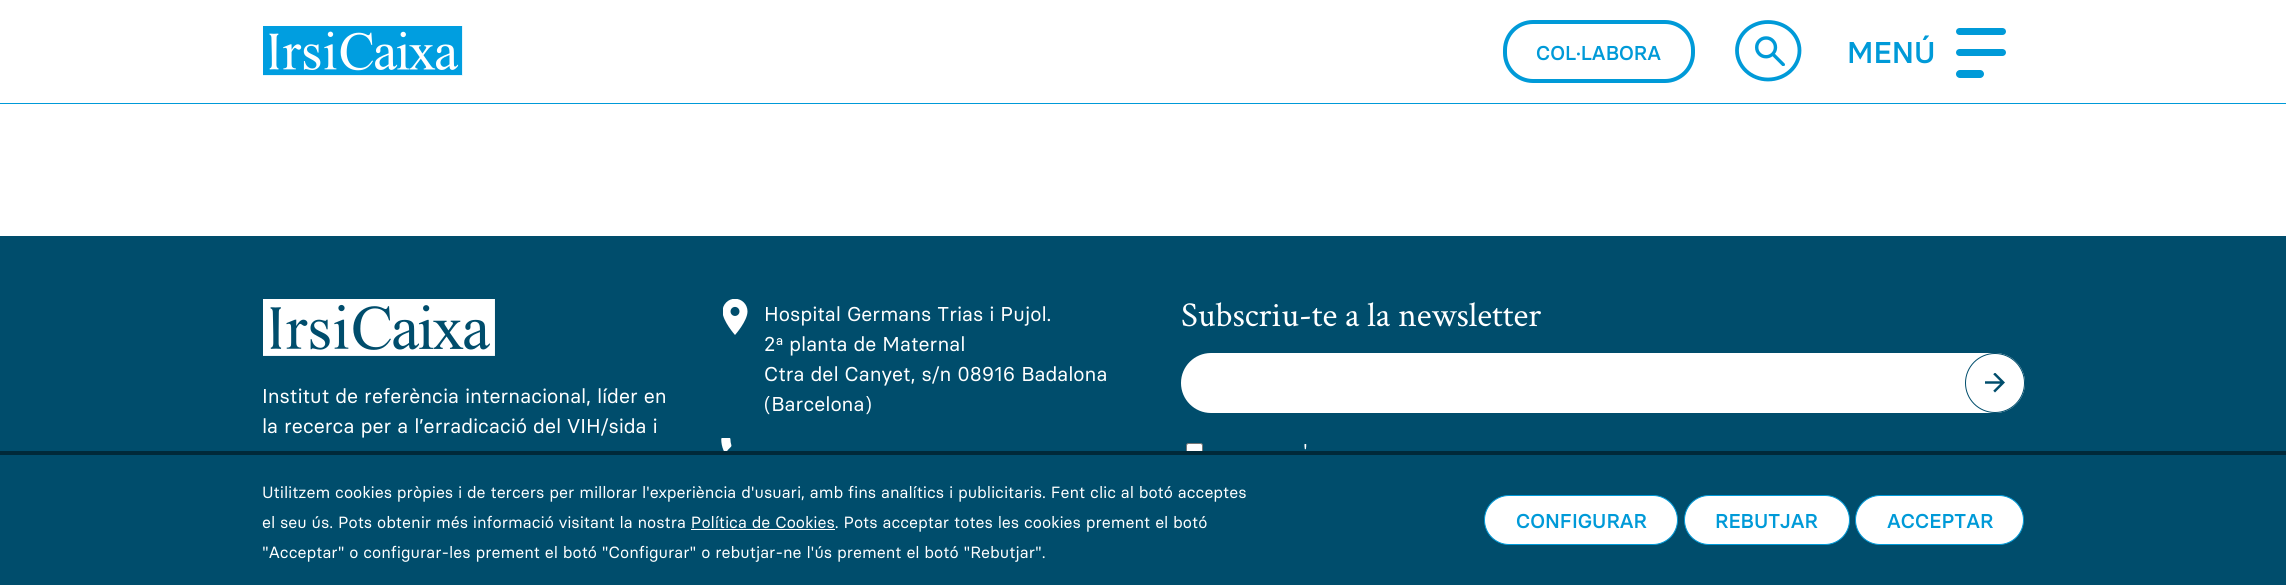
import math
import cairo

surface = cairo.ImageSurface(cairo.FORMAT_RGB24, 2286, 585)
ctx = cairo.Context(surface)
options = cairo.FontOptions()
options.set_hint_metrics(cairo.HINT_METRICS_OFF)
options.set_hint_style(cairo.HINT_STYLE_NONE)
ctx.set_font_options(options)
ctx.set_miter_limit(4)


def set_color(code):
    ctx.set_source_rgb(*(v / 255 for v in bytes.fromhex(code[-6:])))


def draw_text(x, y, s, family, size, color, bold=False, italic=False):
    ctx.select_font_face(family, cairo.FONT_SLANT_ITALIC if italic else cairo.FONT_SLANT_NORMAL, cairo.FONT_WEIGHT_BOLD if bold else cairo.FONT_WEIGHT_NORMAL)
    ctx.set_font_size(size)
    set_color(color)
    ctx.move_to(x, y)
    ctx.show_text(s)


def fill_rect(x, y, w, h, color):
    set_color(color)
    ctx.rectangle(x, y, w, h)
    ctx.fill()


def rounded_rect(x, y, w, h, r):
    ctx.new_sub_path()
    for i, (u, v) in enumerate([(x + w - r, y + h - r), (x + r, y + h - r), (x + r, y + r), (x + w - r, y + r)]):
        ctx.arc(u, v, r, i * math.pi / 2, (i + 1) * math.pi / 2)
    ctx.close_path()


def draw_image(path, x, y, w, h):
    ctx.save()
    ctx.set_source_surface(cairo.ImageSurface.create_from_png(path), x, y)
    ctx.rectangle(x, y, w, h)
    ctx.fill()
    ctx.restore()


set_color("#ffffff")
ctx.paint()
fill_rect(0, 103, 2286, 1, "#009ad8")
draw_image("assets/img1.png", 263, 26, 200, 50)
rounded_rect(1505, 22, 188, 59, 28)
ctx.set_line_width(4)
ctx.stroke()
draw_text(1536, 60, "COL·LABORA", "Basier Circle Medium", 20, "#009ad8")
ctx.new_path()
ctx.move_to(1768, 22)
ctx.curve_to(1785.5, 22, 1799.5, 34.5, 1799.5, 50.5)
ctx.curve_to(1799.5, 66.5, 1785.5, 79.5, 1768, 79.5)
ctx.curve_to(1751, 79.5, 1737, 66.5, 1737, 50.5)
ctx.curve_to(1737, 34.5, 1751, 22, 1768, 22)
ctx.close_path()
ctx.set_line_width(3.8)
ctx.stroke()
draw_image("assets/img2.png", 1755, 36, 30, 30)
draw_text(1847, 63, "MENÚ", "Basier Circle Medium", 30, "#009ad8")
rounded_rect(1956, 28, 50, 7, 3.5)
ctx.fill()
rounded_rect(1956, 70, 28, 8, 4)
ctx.fill()
rounded_rect(1956, 49, 50, 7, 3.5)
ctx.fill()
fill_rect(0, 236, 2286, 215, "#004d6c")
draw_image("assets/img3.png", 263, 299, 232, 57)
draw_text(262, 403, "Institut de referència internacional, líder en", "Basier Circle", 20, "#ffffff")
draw_text(262, 433, "la recerca per a l’erradicació del VIH/sida i", "Basier Circle", 20, "#ffffff")
draw_image("assets/img4.png", 723, 299, 25, 36)
draw_text(764, 321, "Hospital Germans Trias i Pujol.", "Basier Circle", 20, "#ffffff")
draw_text(764, 351, "2ª planta de Maternal", "Basier Circle", 20, "#ffffff")
draw_text(764, 381, "Ctra del Canyet, s/n 08916 Badalona", "Basier Circle", 20, "#ffffff")
draw_text(764, 411, "(Barcelona)", "Basier Circle", 20, "#ffffff")
draw_image("assets/img5.png", 721, 438, 11, 13)
draw_text(1181, 326, "Subscriu-te a la newsletter", "Crimson Text", 35, "#ffffff")
rounded_rect(1181, 353, 844, 60, 30)
ctx.fill()
draw_image("assets/img6.png", 1985, 373, 20, 20)
ctx.arc(1995, 383, 29.5, 0, 2 * math.pi)
set_color("#004d6c")
ctx.set_line_width(1)
ctx.stroke()
set_color("#ffffff")
rounded_rect(1186.5, 443.5, 16, 15, 2)
ctx.fill_preserve()
set_color("#767676")
ctx.stroke()
draw_text(1303, 458, "'", "Basier Circle", 20, "#ffffff")
fill_rect(0, 455, 2286, 130, "#004d6c")
fill_rect(0, 451, 2286, 4, "#002939")
draw_text(262, 498, "Utilitzem cookies pròpies i de tercers per millorar l'experiència d'usuari, amb fins analítics i publicitaris. Fent clic al botó acceptes", "Basier Circle", 16.25, "#ffffff")
draw_text(262, 528, "el seu ús. Pots obtenir més informació visitant la nostra Política de Cookies. Pots acceptar totes les cookies prement el botó", "Basier Circle", 16.25, "#ffffff")
fill_rect(691, 529, 144, 1, "#ffffff")
draw_text(262, 558, "\"Acceptar\" o configurar-les prement el botó \"Configurar\" o rebutjar-ne l'ús prement el botó \"Rebutjar\".", "Basier Circle", 16.25, "#ffffff")
rounded_rect(1484.5, 495.5, 193, 49, 24.5)
ctx.fill_preserve()
set_color("#009ad8")
ctx.stroke()
draw_text(1516, 528, "CONFIGURAR", "Basier Circle Medium", 20, "#009ad8")
set_color("#ffffff")
rounded_rect(1684.5, 495.5, 165, 49, 24.5)
ctx.fill_preserve()
set_color("#009ad8")
ctx.stroke()
draw_text(1715, 528, "REBUTJAR", "Basier Circle Medium", 20, "#009ad8")
set_color("#ffffff")
rounded_rect(1855.5, 495.5, 168, 49, 24.5)
ctx.fill_preserve()
set_color("#009ad8")
ctx.stroke()
draw_text(1887, 528, "ACCEPTAR", "Basier Circle Medium", 20, "#009ad8")
surface.write_to_png("output.png")
